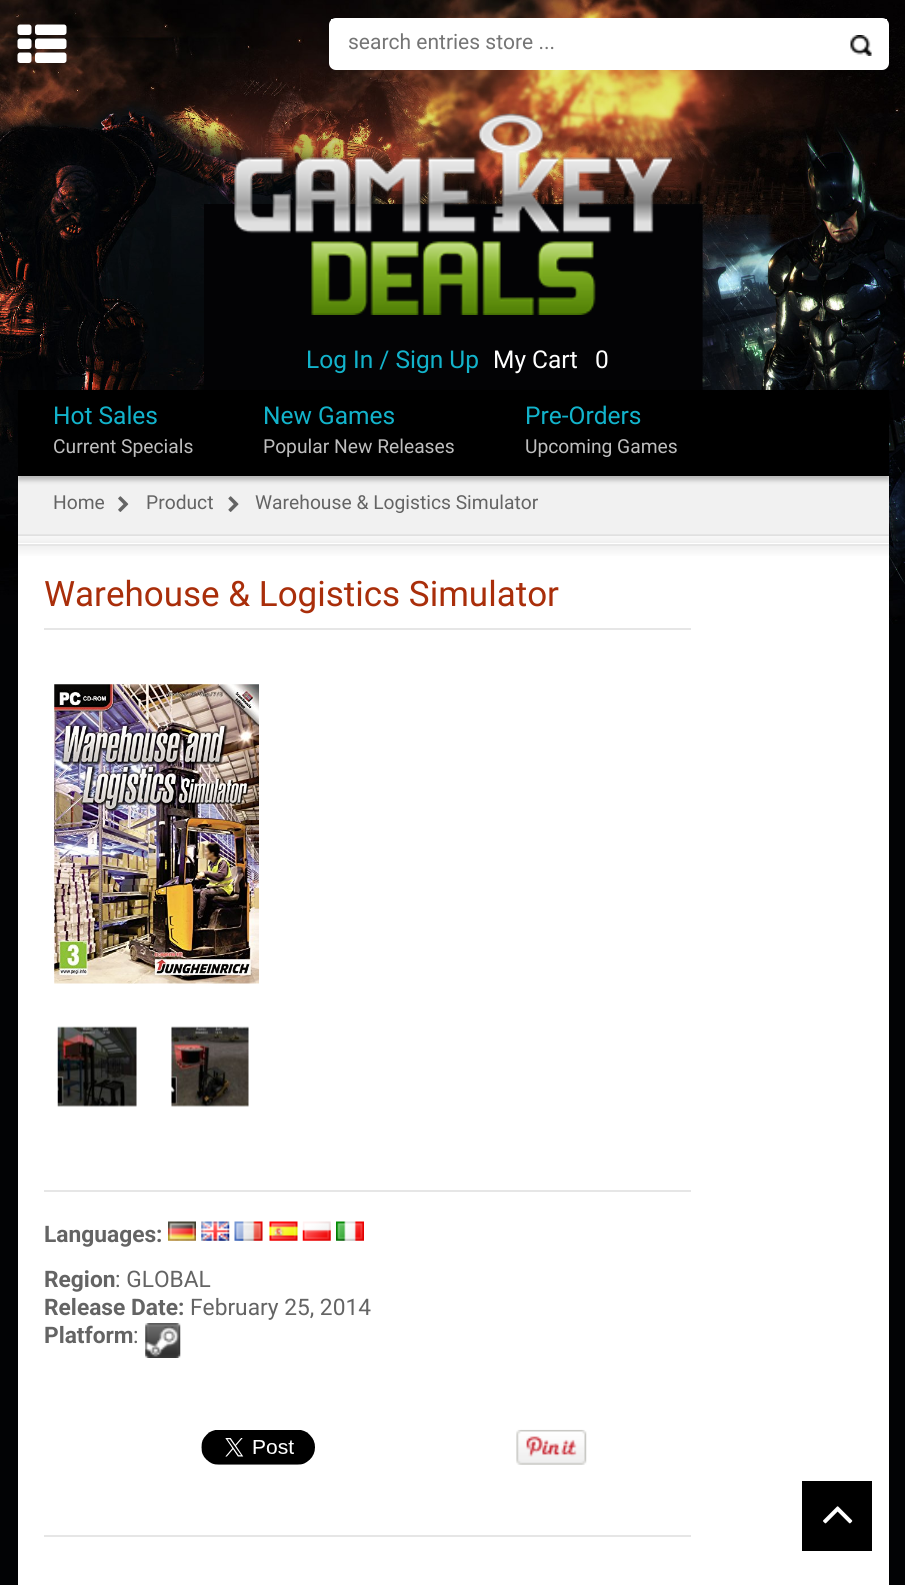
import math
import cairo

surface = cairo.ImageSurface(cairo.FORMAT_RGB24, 905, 1585)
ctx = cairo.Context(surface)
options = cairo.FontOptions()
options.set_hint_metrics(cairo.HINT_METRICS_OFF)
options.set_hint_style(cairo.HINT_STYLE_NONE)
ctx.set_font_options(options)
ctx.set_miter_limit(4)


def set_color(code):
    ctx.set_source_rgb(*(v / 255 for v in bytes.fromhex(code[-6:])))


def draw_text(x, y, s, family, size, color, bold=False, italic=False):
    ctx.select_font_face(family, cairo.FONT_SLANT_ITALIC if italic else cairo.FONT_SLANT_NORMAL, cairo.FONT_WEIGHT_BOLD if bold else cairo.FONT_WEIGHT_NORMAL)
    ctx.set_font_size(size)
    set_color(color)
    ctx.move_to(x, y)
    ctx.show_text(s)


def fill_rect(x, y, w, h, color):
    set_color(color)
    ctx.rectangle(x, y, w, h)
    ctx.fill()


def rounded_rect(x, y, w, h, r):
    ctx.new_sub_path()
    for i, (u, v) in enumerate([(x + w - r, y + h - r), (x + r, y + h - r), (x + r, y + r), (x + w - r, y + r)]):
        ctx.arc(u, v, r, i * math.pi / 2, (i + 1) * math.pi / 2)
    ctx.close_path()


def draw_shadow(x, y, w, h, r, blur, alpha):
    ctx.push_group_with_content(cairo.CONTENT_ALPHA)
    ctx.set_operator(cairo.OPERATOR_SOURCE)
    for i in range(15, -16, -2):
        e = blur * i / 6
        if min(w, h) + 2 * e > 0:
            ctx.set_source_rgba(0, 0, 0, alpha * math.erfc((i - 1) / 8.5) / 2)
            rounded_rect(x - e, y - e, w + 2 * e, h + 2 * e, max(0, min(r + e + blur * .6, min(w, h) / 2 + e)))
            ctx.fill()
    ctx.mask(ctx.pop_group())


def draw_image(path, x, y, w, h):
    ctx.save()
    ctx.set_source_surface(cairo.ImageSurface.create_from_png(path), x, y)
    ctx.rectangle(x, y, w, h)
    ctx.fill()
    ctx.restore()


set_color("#020305")
ctx.paint()
draw_image("assets/img1.png", 0, 0, 905, 624)
draw_image("assets/img2.png", 17, 24, 50, 39)
set_color("#ffffff")
rounded_rect(330, 19, 558, 50, 6)
ctx.fill_preserve()
ctx.stroke()
fill_rect(331, 19, 556, 1, "#ffffff")
draw_text(348, 49, "search entries store ...", "Roboto", 21, "#757575")
draw_image("assets/img3.png", 850, 35, 22, 21)
draw_image("assets/img4.png", 234, 113, 438, 202)
draw_text(306, 368, "Log In / Sign Up", "Roboto", 24.5, "#12b3cb")
draw_text(493, 368, "My Cart", "Roboto", 24.5, "#ffffff")
draw_text(595, 368, "0", "Roboto", 24.5, "#ffffff")
fill_rect(18, 536, 871, 1049, "#ffffff")
fill_rect(18, 476, 871, 58, "#f1f1f1")
set_color("#000000")
draw_shadow(18, 392, 871, 88, 0, 2.5, 0.25)
fill_rect(18, 390, 871, 86, "#000000")
draw_text(53, 424, "Hot Sales", "Roboto", 24.5, "#12b3cb")
draw_text(53, 453, "Current Specials", "Roboto", 19.25, "#bebebe")
draw_text(263, 424, "New Games", "Roboto", 24.5, "#12b3cb")
draw_text(263, 453, "Popular New Releases", "Roboto", 19.25, "#bebebe")
draw_text(525, 424, "Pre-Orders", "Roboto", 24.5, "#12b3cb")
draw_text(525, 453, "Upcoming Games", "Roboto", 19.25, "#bebebe")
fill_rect(18, 534, 871, 2, "#e5e5e5")
draw_text(53, 509, "Home", "Roboto", 19.25, "#646464")
draw_image("assets/img5.png", 118, 496, 11, 16)
draw_text(146, 509, "Product", "Roboto", 19.25, "#646464")
draw_image("assets/img6.png", 228, 496, 11, 16)
draw_text(255, 509, "Warehouse & Logistics Simulator", "Roboto", 19.25, "#646464")
gradient = cairo.LinearGradient(453, 530, 453, 543)
gradient.add_color_stop_rgba(0, 0, 0, 0, 0)
gradient.add_color_stop_rgba(1, 0, 0, 0, 0.06)
ctx.set_source(gradient)
ctx.rectangle(18, 535, 871, 8)
ctx.fill()
fill_rect(18, 544, 871, 2, "#e6e6e6")
gradient = cairo.LinearGradient(453, 546, 453, 558)
gradient.add_color_stop_rgba(0, 0.941, 0.941, 0.941, 1)
gradient.add_color_stop_rgba(1, 1, 1, 1, 1)
ctx.set_source(gradient)
ctx.rectangle(18, 546, 871, 10)
ctx.fill()
fill_rect(44, 628, 647, 2, "#e6e6e6")
draw_text(44, 606, "Warehouse & Logistics Simulator", "Roboto", 35, "#a92e0a")
draw_image("assets/img7.png", 54, 684, 205, 300)
draw_image("assets/img8.png", 57, 1026, 80, 81)
draw_image("assets/img9.png", 171, 1026, 78, 81)
fill_rect(44, 1190, 647, 2, "#e6e6e6")
draw_text(44, 1242, "Languages:", "Roboto", 22.75, "#646464", bold=True)
draw_image("assets/img10.png", 168, 1221, 28, 20)
draw_image("assets/img11.png", 201, 1221, 29, 20)
draw_image("assets/img12.png", 234, 1221, 29, 20)
draw_image("assets/img13.png", 269, 1221, 29, 20)
draw_image("assets/img14.png", 302, 1221, 29, 20)
draw_image("assets/img15.png", 336, 1221, 28, 20)
draw_text(44, 1287, "Region", "Roboto", 22.75, "#646464", bold=True)
draw_text(115, 1287, ": GLOBAL", "Roboto", 22.75, "#646464")
draw_text(44, 1315, "Release Date:", "Roboto", 22.75, "#646464", bold=True)
draw_text(190, 1315, "February 25, 2014", "Roboto", 22.75, "#646464")
draw_text(44, 1343, "Platform", "Roboto", 22.75, "#646464", bold=True)
draw_text(133, 1343, ":", "Roboto", 22.75, "#646464")
draw_image("assets/img16.png", 145, 1323, 36, 35)
draw_image("assets/img17.png", 201, 1430, 114, 35)
draw_image("assets/img18.png", 516, 1429, 71, 36)
fill_rect(44, 1535, 647, 2, "#e6e6e6")
fill_rect(802, 1481, 70, 70, "#000000")
draw_image("assets/img19.png", 823, 1506, 30, 18)
surface.write_to_png("output.png")
